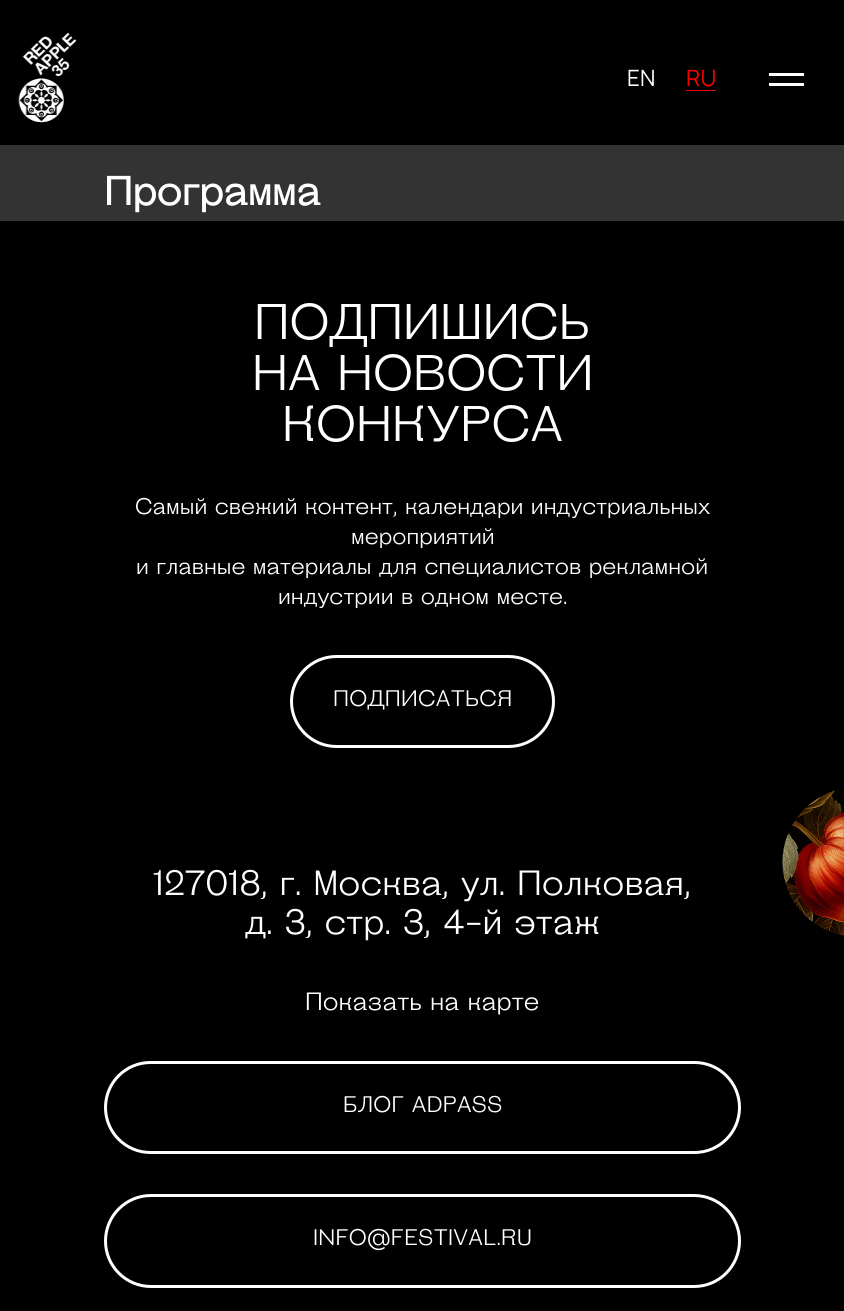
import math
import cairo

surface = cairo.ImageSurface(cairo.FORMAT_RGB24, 844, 1311)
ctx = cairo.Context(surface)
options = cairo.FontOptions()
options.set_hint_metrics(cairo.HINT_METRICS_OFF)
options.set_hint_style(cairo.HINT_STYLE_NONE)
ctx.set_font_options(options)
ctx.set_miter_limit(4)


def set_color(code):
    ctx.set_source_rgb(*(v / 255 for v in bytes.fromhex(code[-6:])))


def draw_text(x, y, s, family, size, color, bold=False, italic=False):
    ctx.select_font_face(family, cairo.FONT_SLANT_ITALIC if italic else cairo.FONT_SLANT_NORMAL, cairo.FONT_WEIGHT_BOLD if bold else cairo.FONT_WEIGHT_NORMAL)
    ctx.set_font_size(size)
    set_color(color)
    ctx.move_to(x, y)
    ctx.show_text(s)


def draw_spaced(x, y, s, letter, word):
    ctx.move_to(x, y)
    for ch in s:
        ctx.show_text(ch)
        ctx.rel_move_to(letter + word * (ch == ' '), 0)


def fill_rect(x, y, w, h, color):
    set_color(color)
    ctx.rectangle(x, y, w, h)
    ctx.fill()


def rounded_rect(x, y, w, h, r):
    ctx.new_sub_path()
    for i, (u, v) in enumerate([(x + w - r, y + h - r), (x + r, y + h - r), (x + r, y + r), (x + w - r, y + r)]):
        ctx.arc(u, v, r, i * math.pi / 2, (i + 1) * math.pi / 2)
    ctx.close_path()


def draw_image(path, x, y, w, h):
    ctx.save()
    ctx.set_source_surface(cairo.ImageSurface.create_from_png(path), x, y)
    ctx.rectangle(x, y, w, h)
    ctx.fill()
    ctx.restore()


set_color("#000000")
ctx.paint()
draw_image("assets/img1.png", 18, 32, 59, 91)
ctx.select_font_face("Manrope ExtraLight")
ctx.set_font_size(22.5)
set_color("#ffffff")
draw_spaced(627, 86, "EN", 0.25, 0)
fill_rect(686, 90, 30, 1, "#ff0000")
draw_spaced(686, 86, "RU", 0.25, 0)
fill_rect(769, 73, 35, 3, "#ffffff")
fill_rect(769, 83, 35, 3, "#ffffff")
fill_rect(0, 145, 844, 76, "#333333")
draw_text(104, 205, "Программа", "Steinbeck", 40, "#ffffff", bold=True)
draw_text(254, 339, "ПОДПИШИСЬ", "Steinbeck", 50, "#ffffff")
draw_text(252, 390, "НА НОВОСТИ", "Steinbeck", 50, "#ffffff")
draw_text(282, 441, "КОНКУРСА", "Steinbeck", 50, "#ffffff")
draw_text(135, 514, "Самый свежий контент, календари индустриальных", "Steinbeck", 22.5, "#ffffff")
draw_text(351, 544, "мероприятий", "Steinbeck", 22.5, "#ffffff")
draw_text(136, 574, "и главные материалы для специалистов рекламной", "Steinbeck", 22.5, "#ffffff")
draw_text(278, 604, "индустрии в одном месте.", "Steinbeck", 22.5, "#ffffff")
rounded_rect(291.5, 656.5, 262, 90, 45)
ctx.set_line_width(3)
ctx.stroke()
draw_spaced(333, 706, "ПОДПИСАТЬСЯ", 0.25, 0)
draw_text(153, 895, "127018, г. Москва, ул. Полковая,", "Steinbeck", 35, "#ffffff")
draw_text(245, 934, "д. 3, стр. 3, 4-й этаж", "Steinbeck", 35, "#ffffff")
draw_text(305, 1010, "Показать на карте", "Steinbeck", 25, "#ffffff")
rounded_rect(105.5, 1062.5, 634, 90, 45)
ctx.stroke()
ctx.set_font_size(22.5)
draw_spaced(343, 1112, "БЛОГ ADPASS", 0.25, 0)
rounded_rect(105.5, 1195.5, 634, 91, 45.5)
ctx.stroke()
draw_spaced(313, 1245, "INFO@FESTIVAL.RU", 0.25, 0)
draw_image("assets/img2.png", 782, 788, 62, 148)
surface.write_to_png("output.png")
